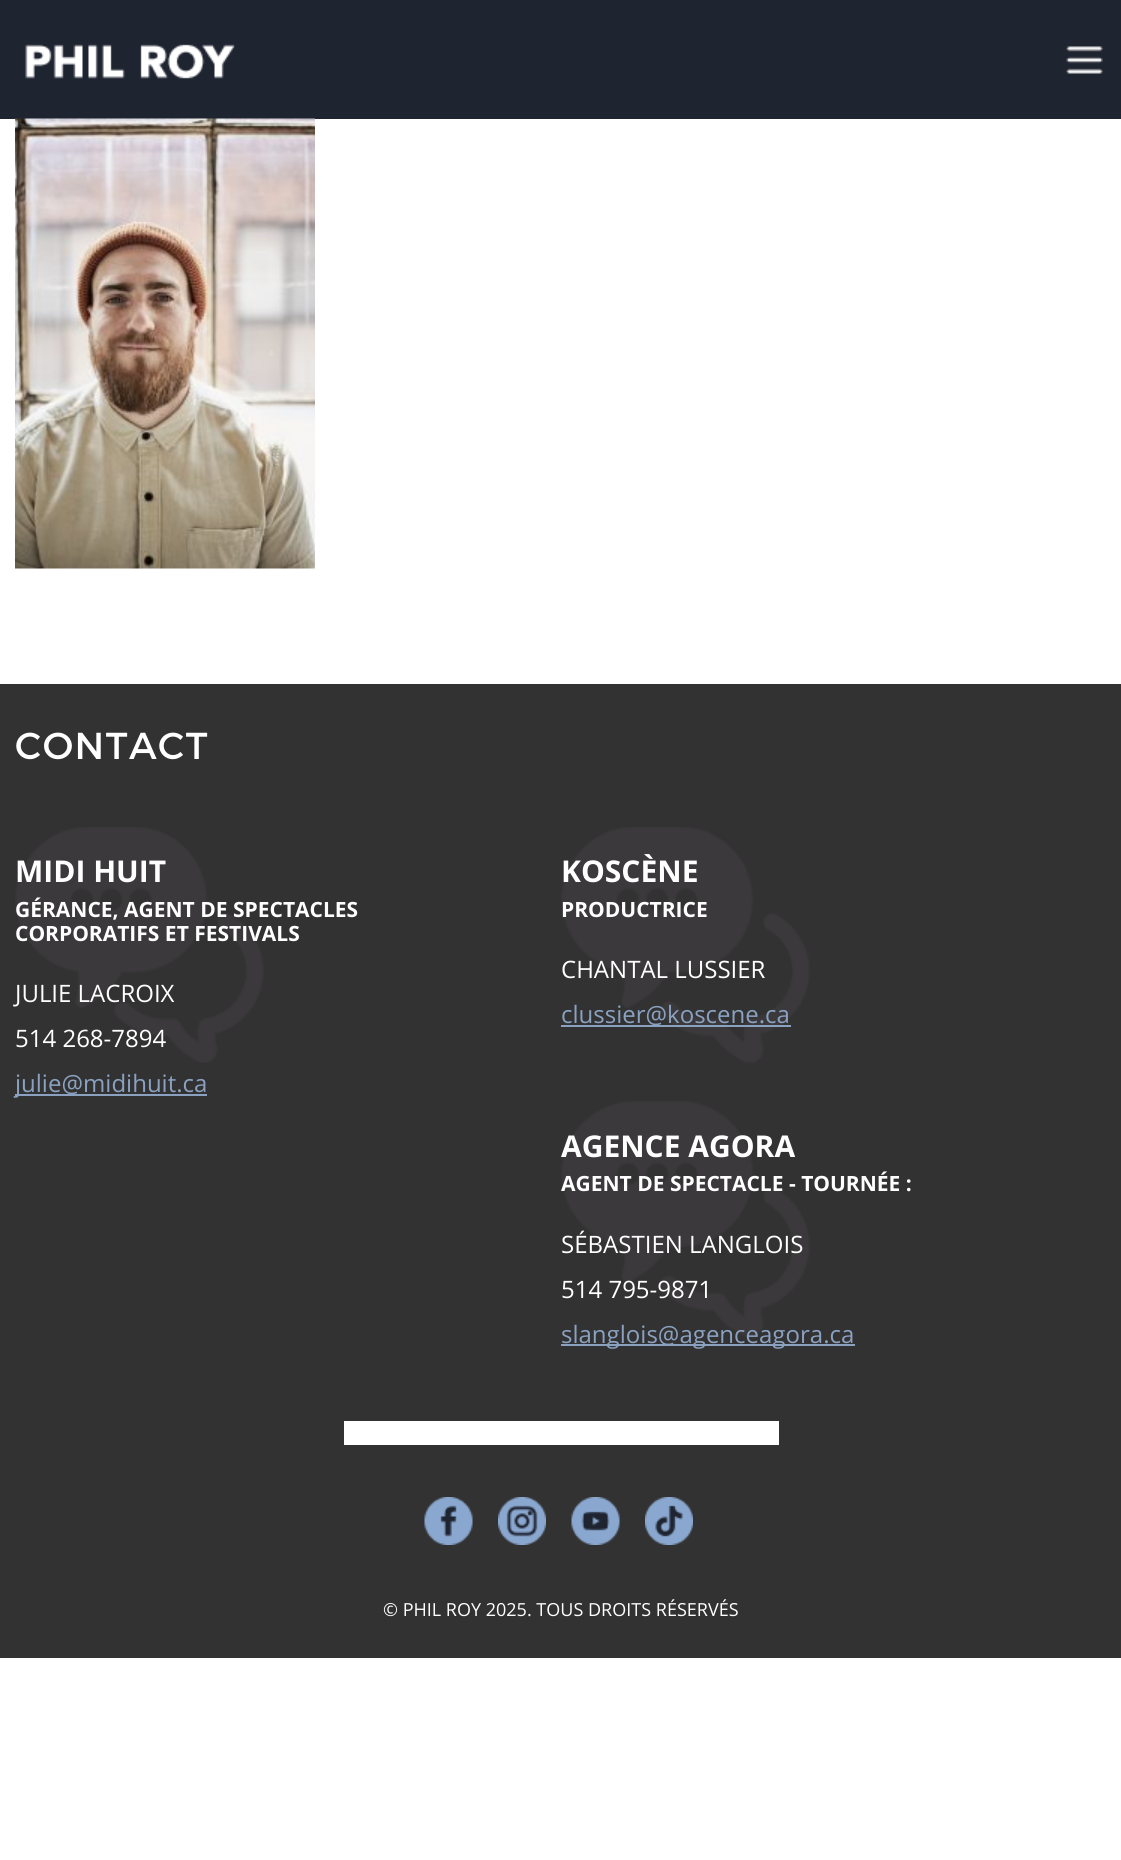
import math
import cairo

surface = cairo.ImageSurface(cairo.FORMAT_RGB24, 1121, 1860)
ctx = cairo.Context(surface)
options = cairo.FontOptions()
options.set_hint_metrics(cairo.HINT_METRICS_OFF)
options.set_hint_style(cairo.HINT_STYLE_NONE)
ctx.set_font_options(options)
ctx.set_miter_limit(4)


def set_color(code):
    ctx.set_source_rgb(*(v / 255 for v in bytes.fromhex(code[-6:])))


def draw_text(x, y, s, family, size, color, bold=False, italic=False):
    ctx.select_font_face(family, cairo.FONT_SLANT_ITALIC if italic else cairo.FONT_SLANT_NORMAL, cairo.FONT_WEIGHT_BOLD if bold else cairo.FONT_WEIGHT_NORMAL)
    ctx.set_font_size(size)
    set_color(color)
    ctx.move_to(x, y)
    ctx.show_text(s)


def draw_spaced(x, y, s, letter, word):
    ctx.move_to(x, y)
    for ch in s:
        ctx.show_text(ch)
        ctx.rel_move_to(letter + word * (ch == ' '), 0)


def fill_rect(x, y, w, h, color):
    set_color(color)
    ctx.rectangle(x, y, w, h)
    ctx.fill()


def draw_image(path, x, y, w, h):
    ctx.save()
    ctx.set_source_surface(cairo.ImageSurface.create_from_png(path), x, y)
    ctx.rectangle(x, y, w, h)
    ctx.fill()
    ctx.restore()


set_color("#ffffff")
ctx.paint()
fill_rect(0, 0, 1121, 119, "#1f2431")
draw_image("assets/img1.png", 25, 44, 210, 35)
draw_image("assets/img2.png", 1066, 46, 37, 28)
draw_image("assets/img3.png", 15, 118, 300, 451)
fill_rect(0, 684, 1121, 974, "#333233")
ctx.select_font_face("Montserrat")
ctx.set_font_size(37.5)
set_color("#ffffff")
draw_spaced(15, 759, "CONTACT", 1.5, 0)
draw_image("assets/img4.png", 15, 827, 249, 236)
draw_text(15, 882, "MIDI HUIT", "Open Sans", 30, "#ffffff", bold=True)
draw_text(15, 917, "GÉRANCE, AGENT DE SPECTACLES", "Open Sans", 21, "#ffffff", bold=True)
draw_text(15, 941, "CORPORATIFS ET FESTIVALS", "Open Sans", 21, "#ffffff", bold=True)
draw_text(15, 1002, "JULIE LACROIX", "Open Sans", 24, "#ffffff")
draw_text(15, 1047, "514 268-7894", "Open Sans", 24, "#ffffff")
fill_rect(15, 1094, 192, 2, "#8aa1c0")
draw_text(15, 1092, "julie@midihuit.ca", "Open Sans", 24, "#8aa1c0")
draw_image("assets/img5.png", 561, 827, 249, 236)
draw_text(561, 882, "KOSCÈNE", "Open Sans", 30, "#ffffff", bold=True)
draw_text(561, 917, "PRODUCTRICE", "Open Sans", 21, "#ffffff", bold=True)
draw_text(561, 978, "CHANTAL LUSSIER", "Open Sans", 24, "#ffffff")
fill_rect(561, 1025, 230, 2, "#8aa1c0")
draw_text(561, 1023, "clussier@koscene.ca", "Open Sans", 24, "#8aa1c0")
draw_image("assets/img6.png", 561, 1101, 249, 237)
draw_text(561, 1157, "AGENCE AGORA", "Open Sans", 30, "#ffffff", bold=True)
draw_text(561, 1191, "AGENT DE SPECTACLE - TOURNÉE :", "Open Sans", 21, "#ffffff", bold=True)
draw_text(561, 1253, "SÉBASTIEN LANGLOIS", "Open Sans", 24, "#ffffff")
draw_text(561, 1298, "514 795-9871", "Open Sans", 24, "#ffffff")
fill_rect(561, 1344, 294, 2, "#8aa1c0")
draw_text(561, 1343, "slanglois@agenceagora.ca", "Open Sans", 24, "#8aa1c0")
fill_rect(344, 1421, 435, 24, "#ffffff")
draw_image("assets/img7.png", 424, 1497, 49, 48)
draw_image("assets/img8.png", 498, 1497, 48, 48)
draw_image("assets/img9.png", 571, 1497, 49, 48)
draw_image("assets/img10.png", 645, 1497, 48, 48)
draw_text(383, 1616, "© PHIL ROY 2025. TOUS DROITS RÉSERVÉS", "Open Sans", 18, "#ffffff")
surface.write_to_png("output.png")
